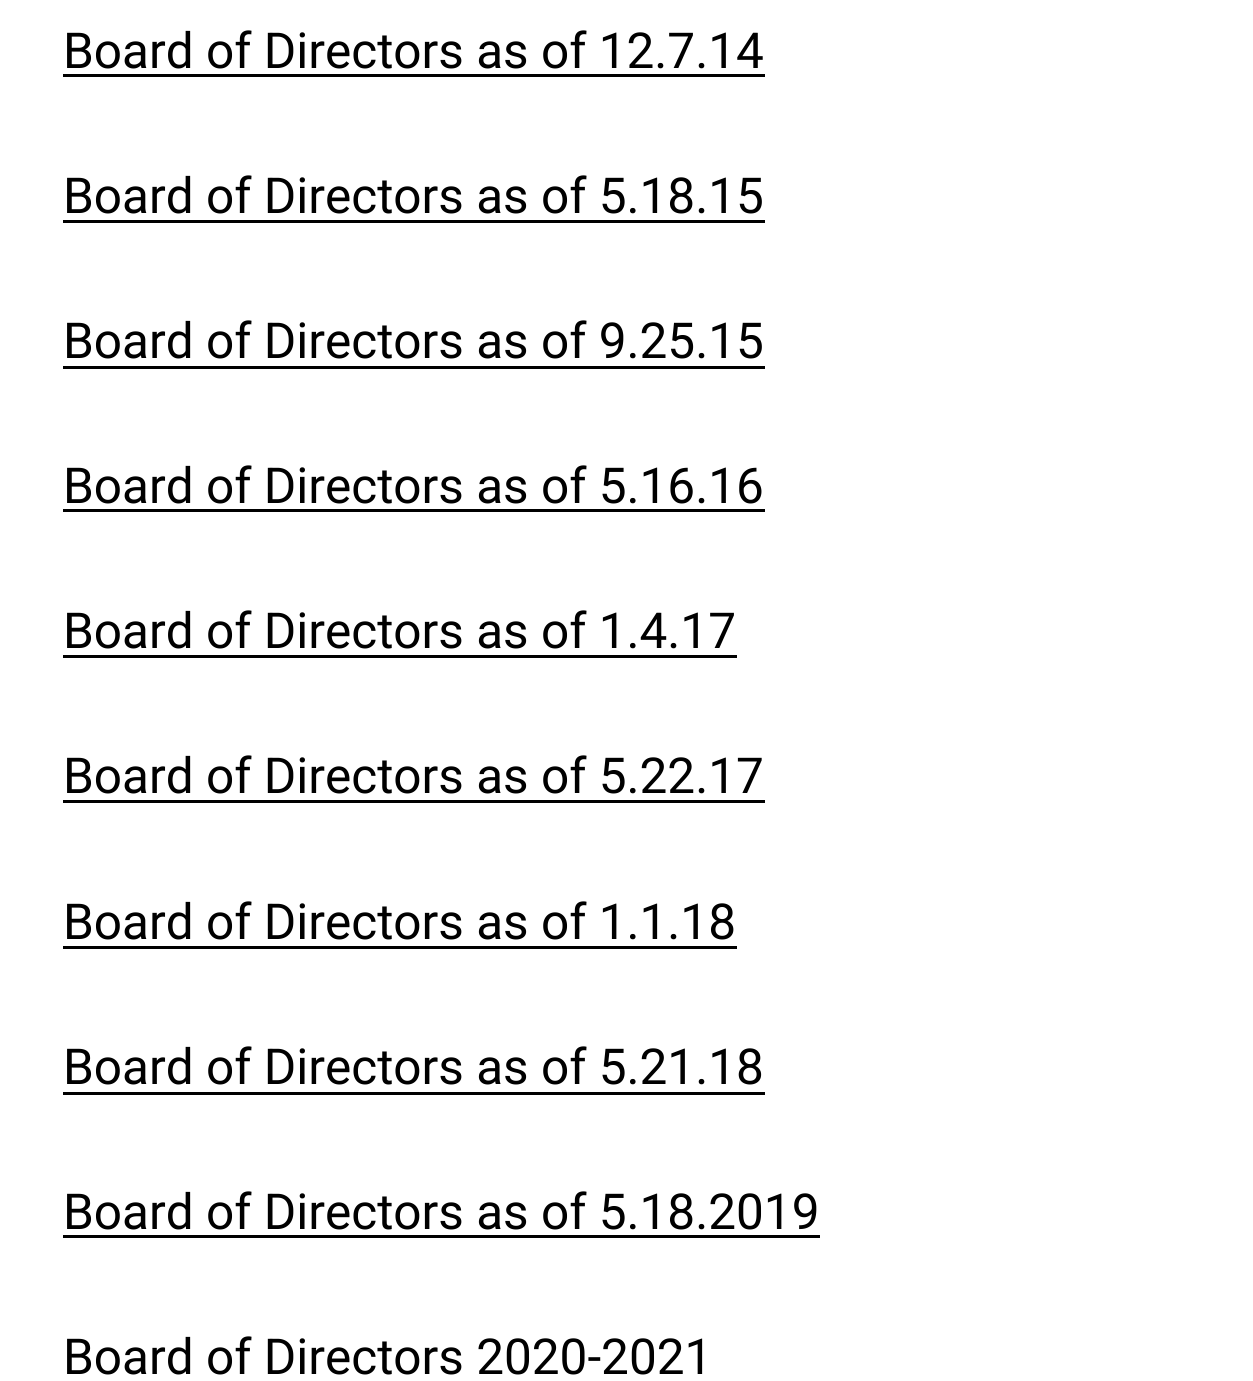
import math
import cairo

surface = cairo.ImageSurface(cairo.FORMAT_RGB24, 1253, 1381)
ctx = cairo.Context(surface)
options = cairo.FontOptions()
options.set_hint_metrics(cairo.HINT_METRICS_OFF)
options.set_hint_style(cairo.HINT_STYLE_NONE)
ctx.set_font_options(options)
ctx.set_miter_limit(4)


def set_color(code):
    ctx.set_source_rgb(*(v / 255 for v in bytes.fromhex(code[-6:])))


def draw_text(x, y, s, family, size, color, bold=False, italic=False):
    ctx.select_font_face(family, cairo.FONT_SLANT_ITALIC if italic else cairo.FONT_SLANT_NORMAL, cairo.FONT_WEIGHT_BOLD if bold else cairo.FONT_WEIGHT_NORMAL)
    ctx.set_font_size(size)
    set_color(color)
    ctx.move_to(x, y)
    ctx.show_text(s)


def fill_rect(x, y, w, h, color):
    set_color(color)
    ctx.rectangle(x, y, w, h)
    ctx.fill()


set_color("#ffffff")
ctx.paint()
draw_text(63, 68, "Board of Directors as of 12.7.14", "Roboto", 49.5, "#000000")
fill_rect(63, 74, 702, 3, "#000000")
draw_text(63, 213, "Board of Directors as of 5.18.15", "Roboto", 49.5, "#000000")
fill_rect(63, 220, 702, 3, "#000000")
draw_text(63, 358, "Board of Directors as of 9.25.15", "Roboto", 49.5, "#000000")
fill_rect(63, 366, 702, 3, "#000000")
draw_text(63, 503, "Board of Directors as of 5.16.16", "Roboto", 49.5, "#000000")
fill_rect(63, 509, 702, 3, "#000000")
draw_text(63, 648, "Board of Directors as of 1.4.17", "Roboto", 49.5, "#000000")
fill_rect(63, 655, 674, 3, "#000000")
draw_text(63, 793, "Board of Directors as of 5.22.17", "Roboto", 49.5, "#000000")
fill_rect(63, 800, 702, 3, "#000000")
draw_text(63, 939, "Board of Directors as of 1.1.18", "Roboto", 49.5, "#000000")
fill_rect(63, 946, 674, 3, "#000000")
draw_text(63, 1084, "Board of Directors as of 5.21.18", "Roboto", 49.5, "#000000")
fill_rect(63, 1092, 702, 3, "#000000")
draw_text(63, 1229, "Board of Directors as of 5.18.2019", "Roboto", 49.5, "#000000")
fill_rect(63, 1235, 757, 3, "#000000")
draw_text(63, 1374, "Board of Directors 2020-2021", "Roboto", 49.5, "#000000")
surface.write_to_png("output.png")
